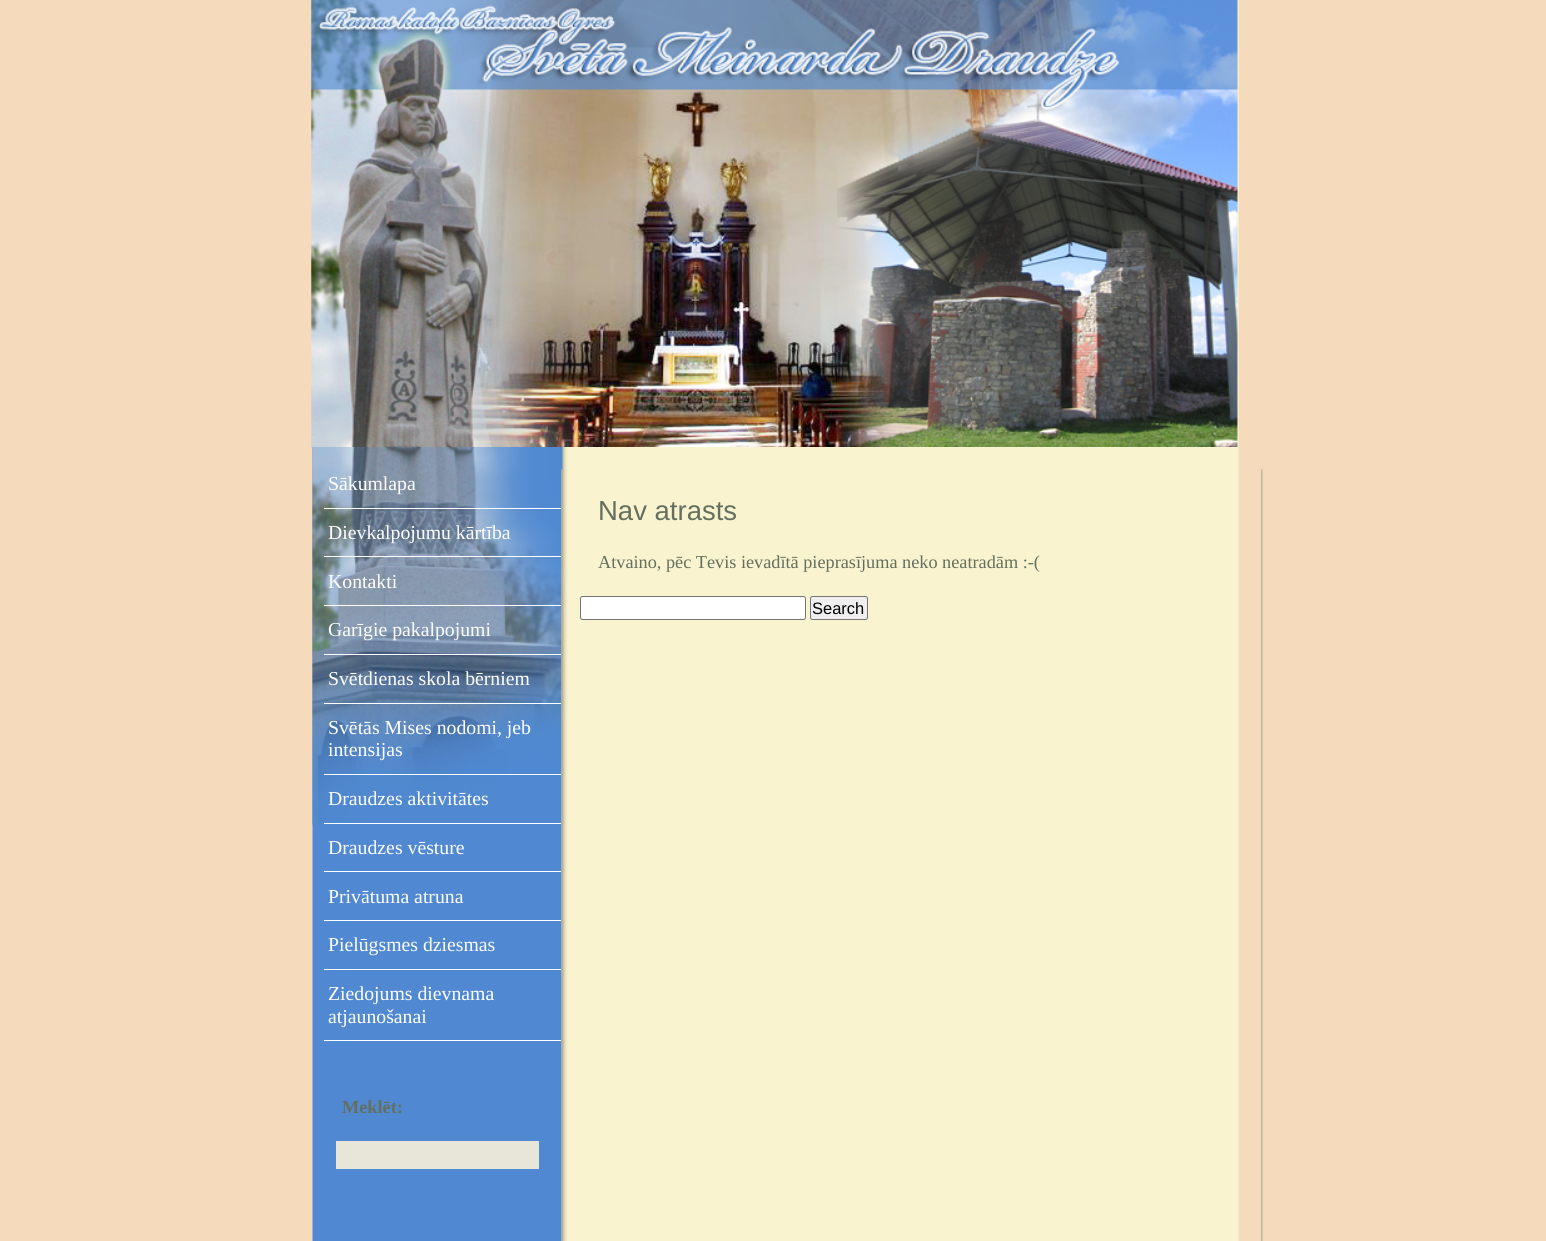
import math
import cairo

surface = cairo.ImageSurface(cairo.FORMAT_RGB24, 1546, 1241)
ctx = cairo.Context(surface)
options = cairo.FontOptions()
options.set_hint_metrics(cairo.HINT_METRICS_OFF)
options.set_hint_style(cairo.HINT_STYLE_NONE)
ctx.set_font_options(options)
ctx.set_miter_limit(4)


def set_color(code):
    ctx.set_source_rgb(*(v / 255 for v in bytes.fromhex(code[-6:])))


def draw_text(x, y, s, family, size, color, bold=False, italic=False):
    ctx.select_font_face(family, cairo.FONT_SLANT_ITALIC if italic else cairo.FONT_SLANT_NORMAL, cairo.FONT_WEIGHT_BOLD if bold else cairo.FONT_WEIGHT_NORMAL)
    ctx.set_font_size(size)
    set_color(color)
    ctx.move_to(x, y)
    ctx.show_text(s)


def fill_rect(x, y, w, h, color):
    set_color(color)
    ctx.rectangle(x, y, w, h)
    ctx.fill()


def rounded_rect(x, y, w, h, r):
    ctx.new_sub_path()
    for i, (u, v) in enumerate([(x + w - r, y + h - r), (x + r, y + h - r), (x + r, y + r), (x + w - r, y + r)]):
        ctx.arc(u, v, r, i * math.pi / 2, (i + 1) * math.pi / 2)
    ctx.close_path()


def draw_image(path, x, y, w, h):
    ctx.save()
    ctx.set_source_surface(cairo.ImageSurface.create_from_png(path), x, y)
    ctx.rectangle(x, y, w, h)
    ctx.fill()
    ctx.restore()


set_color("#f5dabc")
ctx.paint()
draw_image("assets/img1.png", 312, 0, 927, 1241)
draw_image("assets/img2.png", 311, 0, 927, 447)
draw_image("assets/img3.png", 312, 447, 250, 378)
fill_rect(324, 508, 237, 1, "#ffffff")
draw_text(328, 490, "Sākumlapa", "Liberation Serif", 19.75, "#ffffff")
fill_rect(324, 556, 237, 1, "#ffffff")
draw_text(328, 539, "Dievkalpojumu kārtība", "Liberation Serif", 19.75, "#ffffff")
fill_rect(324, 605, 237, 1, "#ffffff")
draw_text(328, 588, "Kontakti", "Liberation Serif", 19.75, "#ffffff")
fill_rect(324, 654, 237, 1, "#ffffff")
draw_text(328, 636, "Garīgie pakalpojumi", "Liberation Serif", 19.75, "#ffffff")
fill_rect(324, 703, 237, 1, "#ffffff")
draw_text(328, 685, "Svētdienas skola bērniem", "Liberation Serif", 19.75, "#ffffff")
fill_rect(324, 774, 237, 1, "#ffffff")
draw_text(328, 734, "Svētās Mises nodomi, jeb", "Liberation Serif", 19.75, "#ffffff")
draw_text(328, 756, "intensijas", "Liberation Serif", 19.75, "#ffffff")
fill_rect(324, 823, 237, 1, "#ffffff")
draw_text(328, 805, "Draudzes aktivitātes", "Liberation Serif", 19.75, "#ffffff")
fill_rect(324, 871, 237, 1, "#ffffff")
draw_text(328, 854, "Draudzes vēsture", "Liberation Serif", 19.75, "#ffffff")
fill_rect(324, 920, 237, 1, "#ffffff")
draw_text(328, 903, "Privātuma atruna", "Liberation Serif", 19.75, "#ffffff")
fill_rect(324, 969, 237, 1, "#ffffff")
draw_text(328, 951, "Pielūgsmes dziesmas", "Liberation Serif", 19.75, "#ffffff")
fill_rect(324, 1040, 237, 1, "#ffffff")
draw_text(328, 1000, "Ziedojums dievnama", "Liberation Serif", 19.75, "#ffffff")
draw_text(328, 1023, "atjaunošanai", "Liberation Serif", 19.75, "#ffffff")
draw_text(342, 1113, "Meklēt:", "Liberation Serif", 18.25, "#646f5e", bold=True)
fill_rect(336, 1141, 203, 28, "#e8e6d8")
draw_image("assets/img4.png", 561, 469, 702, 772)
draw_text(598, 520, "Nav atrasts", "Liberation Sans", 27.5, "#646f5e")
draw_text(598, 568, "Atvaino, pēc Tevis ievadītā pieprasījuma neko neatradām :-(", "Liberation Serif", 18.25, "#646f5e")
set_color("#ffffff")
rounded_rect(580.5, 596.5, 225, 23, 2)
ctx.fill_preserve()
set_color("#767676")
ctx.set_line_width(1)
ctx.stroke()
set_color("#efefef")
rounded_rect(810.5, 596.5, 57, 23, 2)
ctx.fill_preserve()
set_color("#767676")
ctx.stroke()
draw_text(812, 614, "Search", "Liberation Sans", 16.5, "#000000")
surface.write_to_png("output.png")
